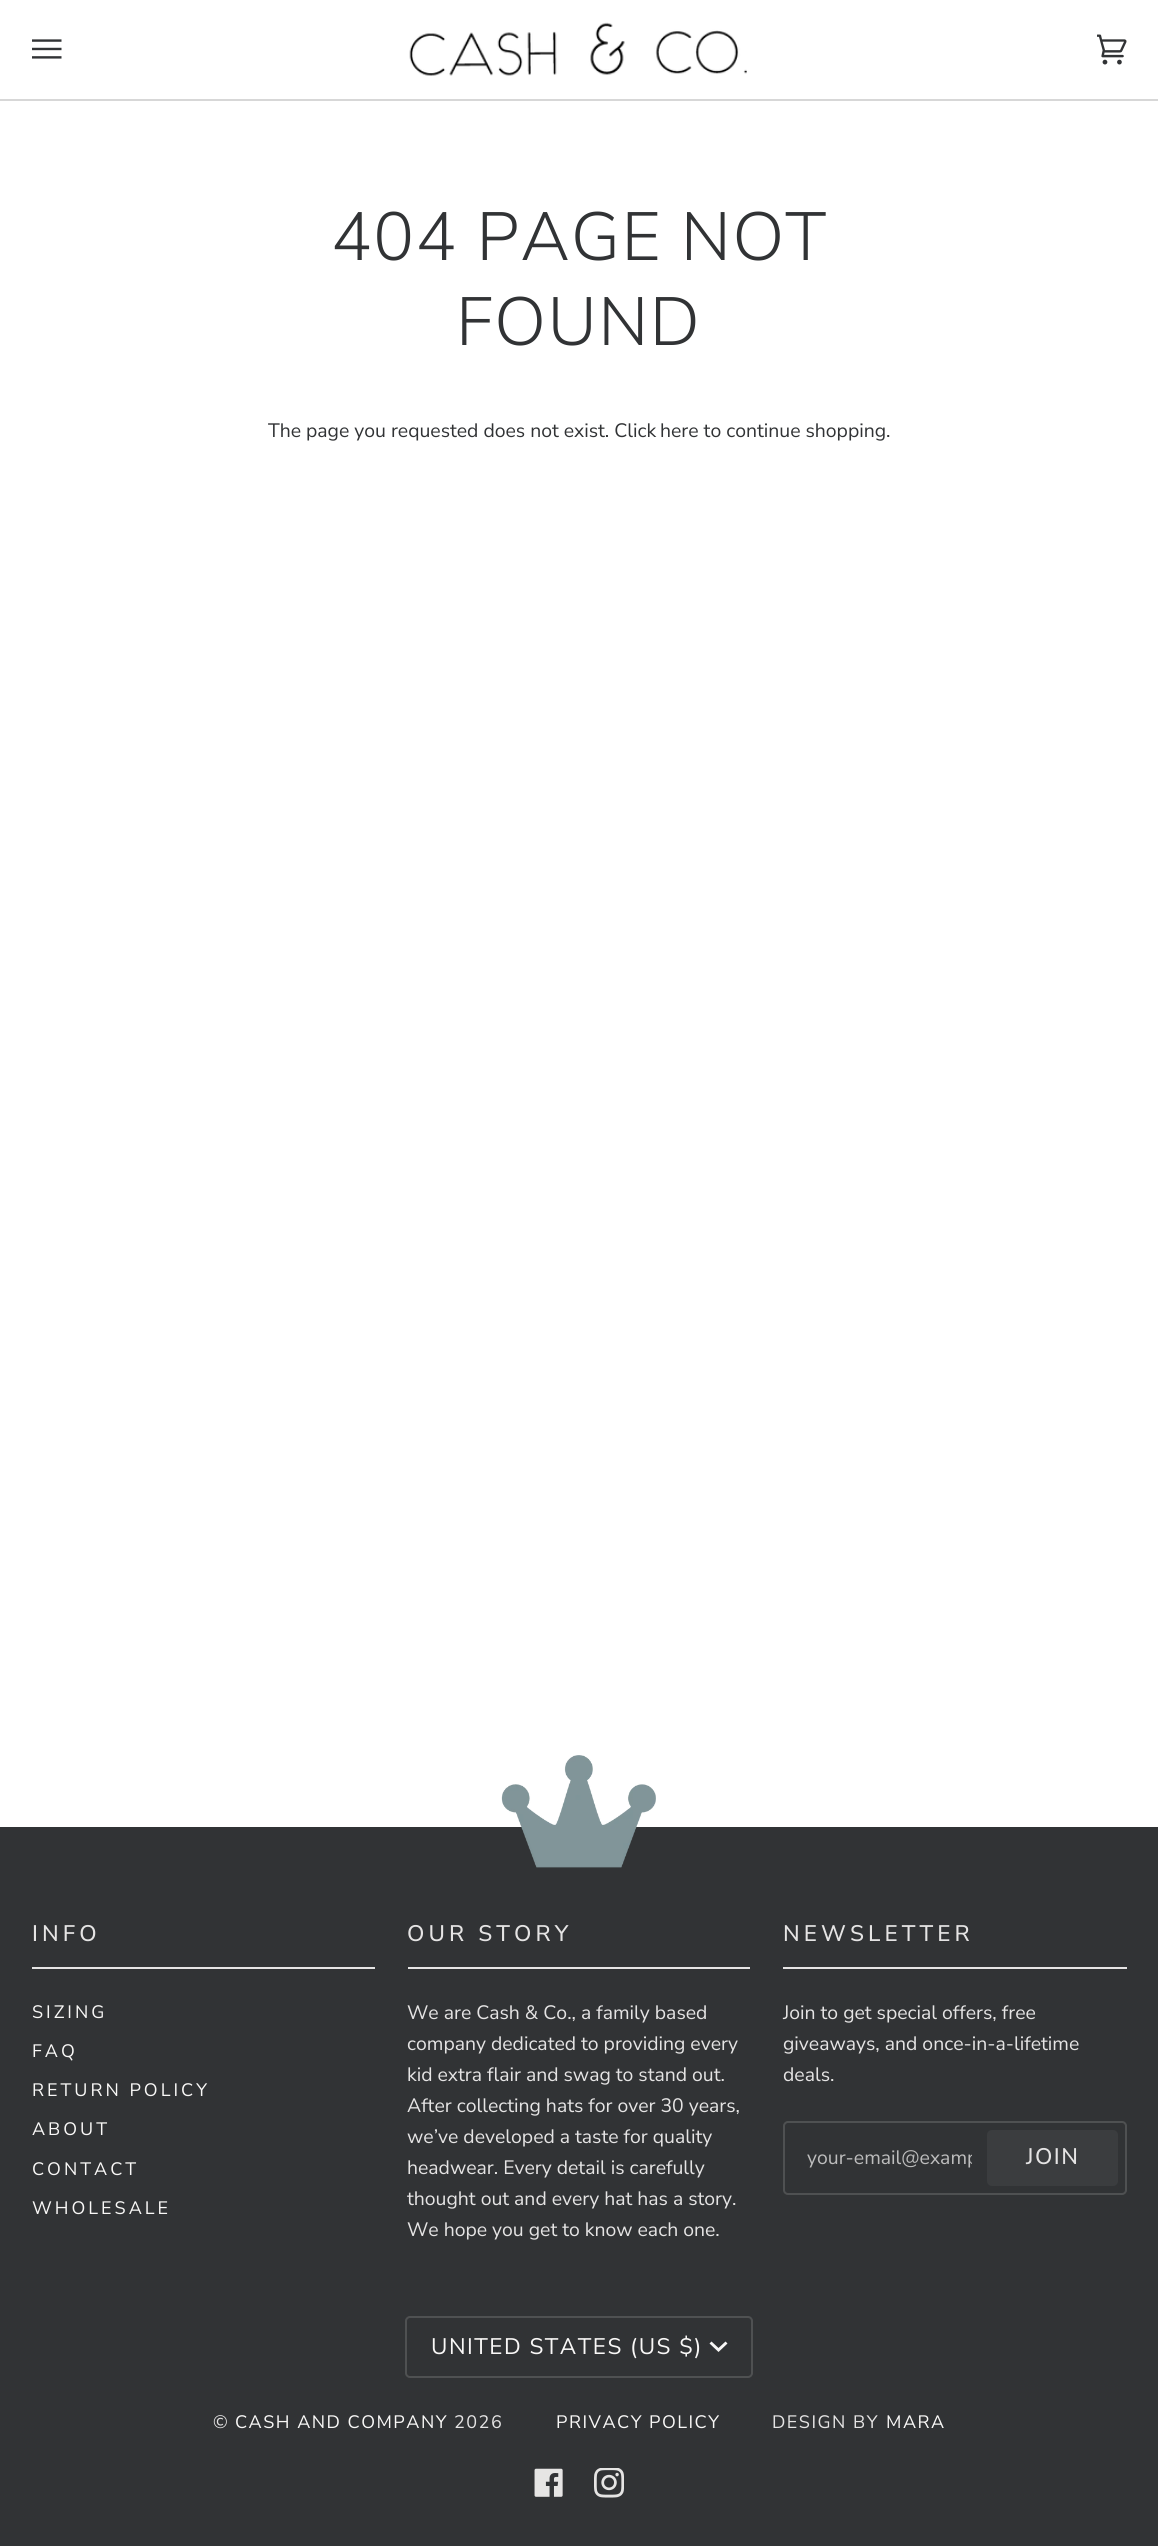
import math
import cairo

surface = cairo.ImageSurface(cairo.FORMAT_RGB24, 1158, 2546)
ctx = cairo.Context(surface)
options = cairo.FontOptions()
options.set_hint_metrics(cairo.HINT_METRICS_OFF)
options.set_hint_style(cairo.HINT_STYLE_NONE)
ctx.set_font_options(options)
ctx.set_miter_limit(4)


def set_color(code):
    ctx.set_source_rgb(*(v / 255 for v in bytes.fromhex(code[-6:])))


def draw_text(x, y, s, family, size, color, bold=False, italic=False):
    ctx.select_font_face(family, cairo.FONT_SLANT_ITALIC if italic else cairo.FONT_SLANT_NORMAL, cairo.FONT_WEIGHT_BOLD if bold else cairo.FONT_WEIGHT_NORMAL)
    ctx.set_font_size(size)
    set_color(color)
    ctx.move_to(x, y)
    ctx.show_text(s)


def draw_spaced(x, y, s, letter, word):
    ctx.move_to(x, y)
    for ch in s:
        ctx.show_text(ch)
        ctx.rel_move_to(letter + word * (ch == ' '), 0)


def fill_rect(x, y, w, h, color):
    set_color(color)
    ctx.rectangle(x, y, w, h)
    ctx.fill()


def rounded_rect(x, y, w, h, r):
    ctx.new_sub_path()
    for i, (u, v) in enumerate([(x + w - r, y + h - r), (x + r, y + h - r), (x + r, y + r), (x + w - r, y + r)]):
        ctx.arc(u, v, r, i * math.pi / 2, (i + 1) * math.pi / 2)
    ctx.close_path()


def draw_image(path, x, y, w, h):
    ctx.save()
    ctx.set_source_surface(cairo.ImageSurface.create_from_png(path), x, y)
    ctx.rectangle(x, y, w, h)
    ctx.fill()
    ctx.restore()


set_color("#ffffff")
ctx.paint()
fill_rect(0, 99, 1158, 2, "#d7d7d7")
draw_image("assets/img1.png", 32, 39, 30, 20)
draw_image("assets/img2.png", 409, 22, 338, 54)
draw_image("assets/img3.png", 1097, 34, 30, 31)
ctx.select_font_face("Nunito Sans Light")
ctx.set_font_size(68)
set_color("#313335")
draw_spaced(331, 260, "404 PAGE NOT", 1.5, 0)
draw_spaced(456, 345, "FOUND", 1.5, 0)
draw_text(268, 437, "The page you requested does not exist. Click", "Nunito Sans", 19.4, "#313335")
draw_text(660, 437, "here to continue shopping.", "Nunito Sans", 19.4, "#313335")
fill_rect(0, 1827, 1158, 719, "#313335")
draw_image("assets/img4.png", 501, 1755, 155, 113)
fill_rect(32, 1967, 343, 2, "#e5e4e4")
ctx.select_font_face("Nunito Sans Medium")
ctx.set_font_size(22.5)
draw_spaced(32, 1941, "INFO", 4.1, 0)
ctx.select_font_face("Nunito Sans")
ctx.set_font_size(18)
set_color("#f9f8f7")
draw_spaced(32, 2018, "SIZING", 3, 0)
draw_spaced(32, 2057, "FAQ", 3, 0)
draw_spaced(32, 2096, "RETURN POLICY", 3, 0)
draw_spaced(32, 2135, "ABOUT", 3, 0)
draw_spaced(32, 2175, "CONTACT", 3, 0)
draw_spaced(32, 2214, "WHOLESALE", 3, 0)
fill_rect(408, 1967, 342, 2, "#e5e4e4")
ctx.select_font_face("Nunito Sans Medium")
ctx.set_font_size(22.5)
draw_spaced(407, 1941, "OUR STORY", 4.1, 0)
draw_text(407, 2019, "We are Cash & Co., a family based", "Nunito Sans", 19.4, "#e5e4e4")
draw_text(407, 2050, "company dedicated to providing every", "Nunito Sans", 19.4, "#e5e4e4")
draw_text(407, 2081, "kid extra flair and swag to stand out.", "Nunito Sans", 19.4, "#e5e4e4")
draw_text(407, 2112, "After collecting hats for over 30 years,", "Nunito Sans", 19.4, "#e5e4e4")
draw_text(407, 2143, "we’ve developed a taste for quality", "Nunito Sans", 19.4, "#e5e4e4")
draw_text(407, 2174, "headwear. Every detail is carefully", "Nunito Sans", 19.4, "#e5e4e4")
draw_text(407, 2205, "thought out and every hat has a story.", "Nunito Sans", 19.4, "#e5e4e4")
draw_text(407, 2236, "We hope you get to know each one.", "Nunito Sans", 19.4, "#e5e4e4")
fill_rect(783, 1967, 344, 2, "#e5e4e4")
ctx.select_font_face("Nunito Sans Medium")
ctx.set_font_size(22.5)
draw_spaced(783, 1941, "NEWSLETTER", 4.1, 0)
draw_text(783, 2019, "Join to get special offers, free", "Nunito Sans", 19.4, "#e5e4e4")
draw_text(783, 2050, "giveaways, and once-in-a-lifetime", "Nunito Sans", 19.4, "#e5e4e4")
draw_text(783, 2081, "deals.", "Nunito Sans", 19.4, "#e5e4e4")
rounded_rect(784, 2122, 342, 72, 4)
set_color("#4f5152")
ctx.stroke()
ctx.save()
ctx.rectangle(807, 2144, 165, 27)
ctx.clip()
draw_text(807, 2164, "your-email@examp", "Nunito Sans", 19.4, "#bdbdbd")
ctx.restore()
set_color("#3b3d3f")
rounded_rect(987, 2130, 131, 56, 5)
ctx.fill()
ctx.select_font_face("Nunito Sans Medium")
ctx.set_font_size(22.5)
set_color("#e5e4e4")
draw_spaced(1026, 2164, "JOIN", 1.5, 0)
rounded_rect(406, 2317, 346, 60, 4)
set_color("#4f5152")
ctx.stroke()
ctx.select_font_face("Nunito Sans")
set_color("#f9f8f7")
draw_spaced(431, 2354, "UNITED STATES (US $)", 1.5, 0)
ctx.set_fill_rule(cairo.FILL_RULE_EVEN_ODD)
ctx.new_path()
ctx.move_to(709.5, 2343.5)
ctx.line_to(711.5, 2341.5)
ctx.line_to(718.5, 2348)
ctx.line_to(725.5, 2341.5)
ctx.line_to(727.5, 2343.5)
ctx.line_to(718.5, 2352)
ctx.close_path()
ctx.fill()
ctx.set_font_size(18)
set_color("#e5e4e4")
draw_spaced(213, 2428, "©", 1.5, 0)
set_color("#f9f8f7")
draw_spaced(235, 2428, "CASH AND COMPANY", 1.5, 0)
set_color("#e5e4e4")
draw_spaced(454, 2428, "2026", 1.5, 0)
set_color("#f9f8f7")
draw_spaced(556, 2428, "PRIVACY POLICY", 1.5, 0)
set_color("#e5e4e4")
draw_spaced(772, 2428, "DESIGN BY", 1.5, 0)
set_color("#f9f8f7")
draw_spaced(886, 2428, "MARA", 1.5, 0)
draw_image("assets/img5.png", 534, 2468, 29, 29)
draw_image("assets/img6.png", 594, 2468, 30, 30)
surface.write_to_png("output.png")
